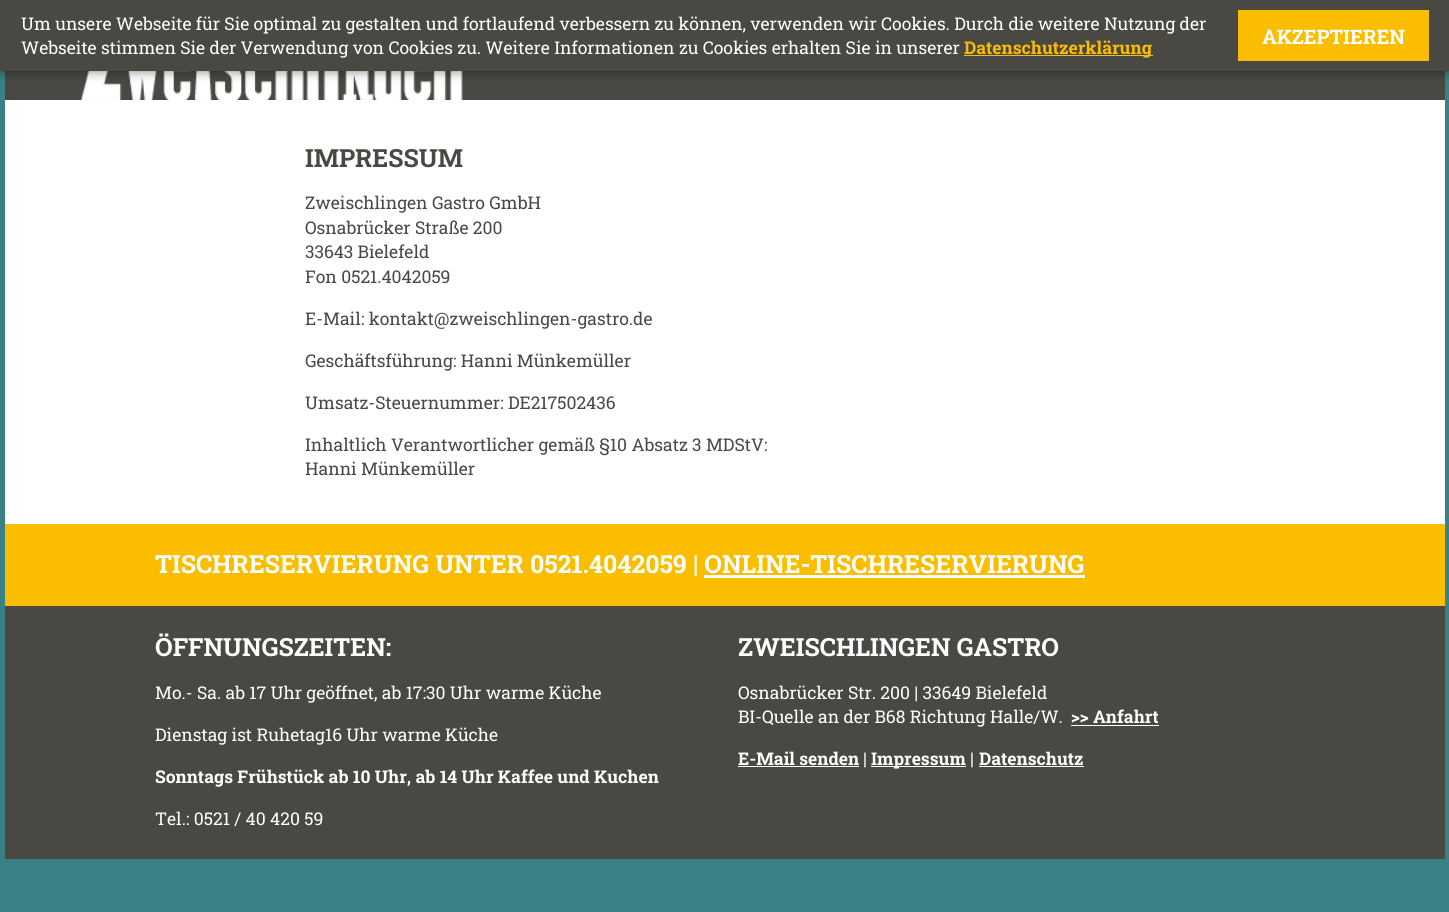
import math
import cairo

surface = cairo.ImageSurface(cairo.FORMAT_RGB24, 1449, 912)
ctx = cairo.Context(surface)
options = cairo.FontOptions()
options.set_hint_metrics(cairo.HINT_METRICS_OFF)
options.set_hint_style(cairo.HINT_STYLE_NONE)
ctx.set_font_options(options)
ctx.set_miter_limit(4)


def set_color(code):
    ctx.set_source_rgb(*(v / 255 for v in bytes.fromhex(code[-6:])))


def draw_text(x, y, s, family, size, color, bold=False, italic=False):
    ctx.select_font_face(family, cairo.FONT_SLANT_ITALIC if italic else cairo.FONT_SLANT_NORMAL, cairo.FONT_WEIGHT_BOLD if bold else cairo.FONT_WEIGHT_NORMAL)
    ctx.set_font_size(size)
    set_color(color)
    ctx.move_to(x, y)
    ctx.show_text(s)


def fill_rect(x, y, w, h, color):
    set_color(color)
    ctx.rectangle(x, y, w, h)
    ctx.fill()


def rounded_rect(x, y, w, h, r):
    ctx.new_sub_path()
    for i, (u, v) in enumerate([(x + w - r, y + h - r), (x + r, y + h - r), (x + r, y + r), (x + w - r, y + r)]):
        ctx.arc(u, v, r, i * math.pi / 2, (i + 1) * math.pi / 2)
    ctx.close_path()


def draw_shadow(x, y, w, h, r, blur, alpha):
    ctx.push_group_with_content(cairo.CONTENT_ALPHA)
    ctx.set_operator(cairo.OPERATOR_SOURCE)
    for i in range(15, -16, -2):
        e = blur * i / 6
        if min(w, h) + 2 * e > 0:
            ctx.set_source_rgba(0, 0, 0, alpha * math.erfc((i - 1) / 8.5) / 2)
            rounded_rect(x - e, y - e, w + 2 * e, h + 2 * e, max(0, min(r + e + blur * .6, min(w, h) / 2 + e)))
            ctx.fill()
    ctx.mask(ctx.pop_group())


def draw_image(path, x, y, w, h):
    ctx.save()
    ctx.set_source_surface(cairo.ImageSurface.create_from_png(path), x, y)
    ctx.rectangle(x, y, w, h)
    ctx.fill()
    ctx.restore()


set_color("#398186")
ctx.paint()
fill_rect(5, 71, 1440, 29, "#4a4843")
draw_image("assets/img1.png", 81, 71, 382, 29)
set_color("#000000")
draw_shadow(0, 0, 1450, 71, 0, 6, 0.5)
fill_rect(0, 0, 1449, 71, "#4a4843")
draw_text(21, 30, "Um unsere Webseite für Sie optimal zu gestalten und fortlaufend verbessern zu können, verwenden wir Cookies. Durch die weitere Nutzung der", "Roboto Slab", 17.5, "#ffffff")
draw_text(21, 54, "Webseite stimmen Sie der Verwendung von Cookies zu. Weitere Informationen zu Cookies erhalten Sie in unserer", "Roboto Slab", 17.5, "#ffffff")
fill_rect(964, 55, 189, 1, "#fbbd00")
draw_text(964, 54, "Datenschutzerklärung", "Roboto Slab", 17.5, "#fbbd00", bold=True)
fill_rect(1238, 10, 191, 51, "#fbbd00")
draw_text(1262, 44, "AKZEPTIEREN", "Roboto Slab", 20, "#ffffff", bold=True)
fill_rect(5, 100, 1440, 424, "#ffffff")
draw_text(305, 167, "IMPRESSUM", "Roboto Slab", 25, "#4a4843", bold=True)
draw_text(305, 209, "Zweischlingen Gastro GmbH", "Roboto Slab", 17.5, "#4a4843")
draw_text(305, 234, "Osnabrücker Straße 200", "Roboto Slab", 17.5, "#4a4843")
draw_text(305, 258, "33643 Bielefeld", "Roboto Slab", 17.5, "#4a4843")
draw_text(305, 283, "Fon 0521.4042059", "Roboto Slab", 17.5, "#4a4843")
draw_text(305, 325, "E-Mail: kontakt@zweischlingen-gastro.de", "Roboto Slab", 17.5, "#4a4843")
draw_text(305, 367, "Geschäftsführung: Hanni Münkemüller", "Roboto Slab", 17.5, "#4a4843")
draw_text(305, 409, "Umsatz-Steuernummer: DE217502436", "Roboto Slab", 17.5, "#4a4843")
draw_text(305, 451, "Inhaltlich Verantwortlicher gemäß §10 Absatz 3 MDStV:", "Roboto Slab", 17.5, "#4a4843")
draw_text(305, 475, "Hanni Münkemüller", "Roboto Slab", 17.5, "#4a4843")
fill_rect(5, 606, 1440, 253, "#4a4843")
fill_rect(5, 524, 1440, 82, "#fbbd00")
draw_text(155, 573, "TISCHRESERVIERUNG UNTER 0521.4042059 | ONLINE-TISCHRESERVIERUNG", "Roboto Slab", 25, "#ffffff", bold=True)
fill_rect(704, 575, 381, 3, "#ffffff")
draw_text(155, 656, "ÖFFNUNGSZEITEN:", "Roboto Slab", 25, "#ffffff", bold=True)
draw_text(155, 699, "Mo.- Sa. ab 17 Uhr geöffnet, ab 17:30 Uhr warme Küche", "Roboto Slab", 17.5, "#ffffff")
draw_text(155, 741, "Dienstag ist Ruhetag16 Uhr warme Küche", "Roboto Slab", 17.5, "#ffffff")
draw_text(155, 783, "Sonntags Frühstück ab 10 Uhr, ab 14 Uhr Kaffee und Kuchen", "Roboto Slab", 17.5, "#ffffff", bold=True)
draw_text(155, 825, "Tel.: 0521 / 40 420 59", "Roboto Slab", 17.5, "#ffffff")
draw_text(738, 656, "ZWEISCHLINGEN GASTRO", "Roboto Slab", 25, "#ffffff", bold=True)
draw_text(738, 699, "Osnabrücker Str. 200 | 33649 Bielefeld", "Roboto Slab", 17.5, "#ffffff")
draw_text(738, 723, "BI-Quelle an der B68 Richtung Halle/W.", "Roboto Slab", 17.5, "#ffffff")
draw_text(1071, 723, ">> Anfahrt", "Roboto Slab", 17.5, "#ffffff", bold=True)
fill_rect(1071, 725, 88, 1, "#ffffff")
draw_text(738, 765, "E-Mail senden", "Roboto Slab", 17.5, "#ffffff", bold=True)
fill_rect(738, 766, 121, 1, "#ffffff")
draw_text(863, 765, "|", "Roboto Slab", 17.5, "#ffffff")
fill_rect(871, 766, 95, 1, "#ffffff")
draw_text(871, 765, "Impressum", "Roboto Slab", 17.5, "#ffffff", bold=True)
draw_text(970, 765, "|", "Roboto Slab", 17.5, "#ffffff")
draw_text(979, 765, "Datenschutz", "Roboto Slab", 17.5, "#ffffff", bold=True)
fill_rect(979, 766, 105, 1, "#ffffff")
surface.write_to_png("output.png")
